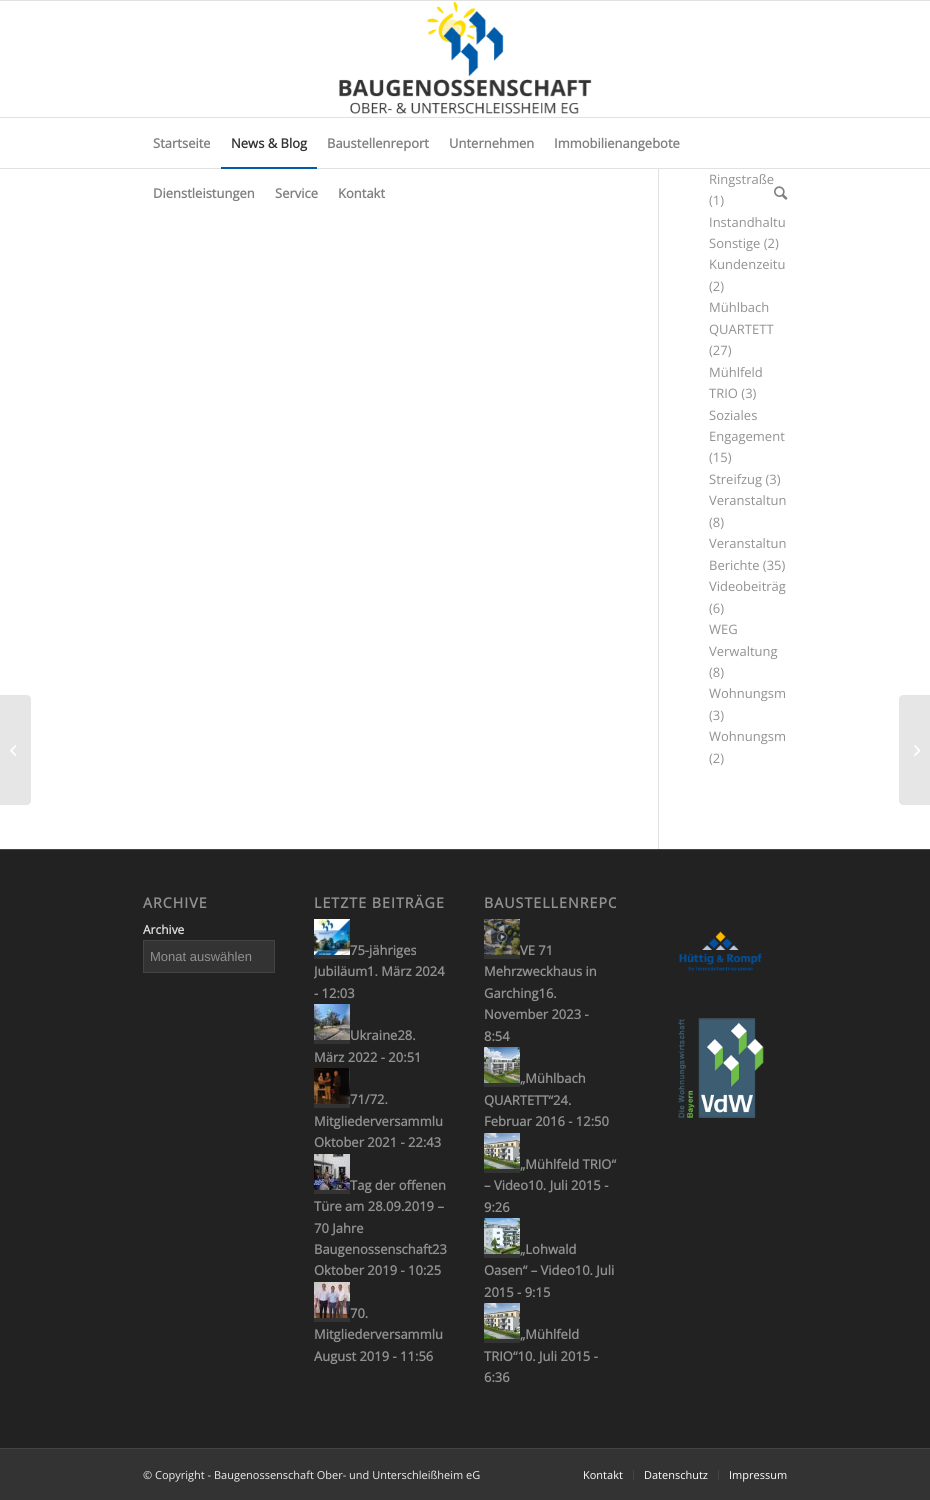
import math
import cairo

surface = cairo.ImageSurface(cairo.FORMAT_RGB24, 930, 1500)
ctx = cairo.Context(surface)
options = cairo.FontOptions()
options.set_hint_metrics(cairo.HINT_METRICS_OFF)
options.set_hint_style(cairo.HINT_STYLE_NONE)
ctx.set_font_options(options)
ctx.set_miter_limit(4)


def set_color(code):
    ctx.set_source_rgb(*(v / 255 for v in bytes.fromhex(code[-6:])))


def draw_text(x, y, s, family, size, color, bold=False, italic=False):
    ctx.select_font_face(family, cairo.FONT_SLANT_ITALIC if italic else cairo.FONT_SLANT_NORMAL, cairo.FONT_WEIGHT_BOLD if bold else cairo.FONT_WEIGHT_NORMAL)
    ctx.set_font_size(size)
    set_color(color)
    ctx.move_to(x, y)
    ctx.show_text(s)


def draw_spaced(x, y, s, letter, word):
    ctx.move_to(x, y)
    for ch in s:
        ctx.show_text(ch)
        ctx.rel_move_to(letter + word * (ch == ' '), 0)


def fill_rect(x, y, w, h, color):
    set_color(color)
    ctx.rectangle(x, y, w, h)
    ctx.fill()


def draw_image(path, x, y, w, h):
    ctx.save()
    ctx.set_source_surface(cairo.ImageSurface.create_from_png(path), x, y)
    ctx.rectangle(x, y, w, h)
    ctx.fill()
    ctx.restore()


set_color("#ffffff")
ctx.paint()
fill_rect(0, 0, 930, 1, "#e1e1e1")
fill_rect(0, 168, 930, 1, "#e1e1e1")
draw_image("assets/img1.png", 339, 1, 253, 113)
fill_rect(0, 117, 930, 1, "#e1e1e1")
draw_text(153, 148, "Startseite", "Open Sans", 13, "#808080", bold=True)
draw_text(231, 148, "News & Blog", "Open Sans", 13, "#333333", bold=True)
fill_rect(221, 167, 96, 2, "#005ca8")
draw_text(327, 148, "Baustellenreport", "Open Sans", 13, "#808080", bold=True)
draw_text(449, 148, "Unternehmen", "Open Sans", 13, "#808080", bold=True)
draw_text(554, 148, "Immobilienangebote", "Open Sans", 13, "#808080", bold=True)
draw_text(153, 198, "Dienstleistungen", "Open Sans", 13, "#808080", bold=True)
draw_text(275, 198, "Service", "Open Sans", 13, "#808080", bold=True)
draw_text(338, 198, "Kontakt", "Open Sans", 13, "#808080", bold=True)
draw_image("assets/img2.png", 774, 186, 14, 14)
set_color("#e6e6e6")
ctx.new_path()
ctx.move_to(0, 695)
ctx.line_to(27, 695)
ctx.curve_to(29, 695, 31, 697, 31, 699)
ctx.line_to(31, 801)
ctx.curve_to(31, 803, 29, 805, 27, 805)
ctx.line_to(0, 805)
ctx.close_path()
ctx.fill()
draw_image("assets/img3.png", 10, 745, 7, 11)
fill_rect(658, 169, 1, 680, "#e1e1e1")
draw_text(709, 184, "Ringstraße", "Open Sans", 13, "#919191")
draw_text(709, 205, "(1)", "Open Sans", 13, "#919191")
draw_text(709, 227, "Instandhaltu", "Open Sans", 13, "#919191")
draw_text(709, 248, "Sonstige (2)", "Open Sans", 13, "#919191")
draw_text(709, 269, "Kundenzeitu", "Open Sans", 13, "#919191")
draw_text(709, 291, "(2)", "Open Sans", 13, "#919191")
draw_text(709, 312, "Mühlbach", "Open Sans", 13, "#919191")
draw_text(709, 334, "QUARTETT", "Open Sans", 13, "#919191")
draw_text(709, 355, "(27)", "Open Sans", 13, "#919191")
draw_text(709, 377, "Mühlfeld", "Open Sans", 13, "#919191")
draw_text(709, 398, "TRIO (3)", "Open Sans", 13, "#919191")
draw_text(709, 420, "Soziales", "Open Sans", 13, "#919191")
draw_text(709, 441, "Engagement", "Open Sans", 13, "#919191")
draw_text(709, 462, "(15)", "Open Sans", 13, "#919191")
draw_text(709, 484, "Streifzug (3)", "Open Sans", 13, "#919191")
draw_text(709, 505, "Veranstaltun", "Open Sans", 13, "#919191")
draw_text(709, 527, "(8)", "Open Sans", 13, "#919191")
draw_text(709, 548, "Veranstaltun", "Open Sans", 13, "#919191")
draw_text(709, 570, "Berichte (35)", "Open Sans", 13, "#919191")
draw_text(709, 591, "Videobeiträg", "Open Sans", 13, "#919191")
draw_text(709, 613, "(6)", "Open Sans", 13, "#919191")
draw_text(709, 634, "WEG", "Open Sans", 13, "#919191")
draw_text(709, 656, "Verwaltung", "Open Sans", 13, "#919191")
draw_text(709, 677, "(8)", "Open Sans", 13, "#919191")
draw_text(709, 698, "Wohnungsm", "Open Sans", 13, "#919191")
draw_text(709, 720, "(3)", "Open Sans", 13, "#919191")
draw_text(709, 741, "Wohnungsm", "Open Sans", 13, "#919191")
draw_text(709, 763, "(2)", "Open Sans", 13, "#919191")
fill_rect(0, 850, 930, 598, "#222222")
fill_rect(0, 849, 930, 1, "#444444")
ctx.select_font_face("Open Sans", cairo.FONT_SLANT_NORMAL, cairo.FONT_WEIGHT_BOLD)
ctx.set_font_size(14.25)
set_color("#919191")
draw_spaced(143, 908, "ARCHIVE", 1, 0)
draw_text(143, 934, "Archive", "Open Sans", 12, "#dddddd", bold=True)
set_color("#333333")
ctx.rectangle(143.5, 940.5, 131, 32)
ctx.fill_preserve()
set_color("#444444")
ctx.set_line_width(1)
ctx.stroke()
draw_text(150, 961, "Monat auswählen", "Liberation Sans", 13, "#919191")
ctx.select_font_face("Open Sans", cairo.FONT_SLANT_NORMAL, cairo.FONT_WEIGHT_BOLD)
ctx.set_font_size(14.25)
draw_spaced(314, 908, "LETZTE BEITRÄGE", 1, 0)
fill_rect(314, 955, 36, 4, "#333333")
draw_image("assets/img4.png", 314, 919, 36, 36)
draw_text(350, 955, "75-jähriges", "Open Sans", 13, "#919191", bold=True)
ctx.save()
ctx.rectangle(314, 895, 132, 472)
ctx.clip()
draw_text(314, 976, "Jubiläum", "Open Sans", 13, "#919191", bold=True)
ctx.restore()
draw_text(367, 976, "1. März 2024", "Open Sans", 13, "#919191", bold=True)
draw_text(314, 998, "- 12:03", "Open Sans", 13, "#919191", bold=True)
fill_rect(314, 1040, 36, 4, "#333333")
draw_image("assets/img5.png", 314, 1004, 36, 36)
draw_text(350, 1040, "Ukraine28.", "Open Sans", 13, "#919191", bold=True)
draw_text(314, 1062, "März 2022 - 20:51", "Open Sans", 13, "#919191", bold=True)
fill_rect(314, 1104, 36, 4, "#333333")
draw_image("assets/img6.png", 314, 1068, 36, 36)
draw_text(350, 1104, "71/72.", "Open Sans", 13, "#919191", bold=True)
draw_text(314, 1126, "Mitgliederversammlu", "Open Sans", 13, "#919191", bold=True)
draw_text(314, 1147, "Oktober 2021 - 22:43", "Open Sans", 13, "#919191", bold=True)
fill_rect(314, 1190, 36, 4, "#333333")
draw_image("assets/img7.png", 314, 1154, 36, 36)
draw_text(350, 1190, "Tag der offenen", "Open Sans", 13, "#919191", bold=True)
draw_text(314, 1211, "Türe am 28.09.2019 –", "Open Sans", 13, "#919191", bold=True)
draw_text(314, 1233, "70 Jahre", "Open Sans", 13, "#919191", bold=True)
draw_text(314, 1254, "Baugenossenschaft23", "Open Sans", 13, "#919191", bold=True)
draw_text(314, 1275, "Oktober 2019 - 10:25", "Open Sans", 13, "#919191", bold=True)
fill_rect(314, 1318, 36, 4, "#333333")
draw_image("assets/img8.png", 314, 1282, 36, 36)
draw_text(350, 1318, "70.", "Open Sans", 13, "#919191", bold=True)
draw_text(314, 1339, "Mitgliederversammlu", "Open Sans", 13, "#919191", bold=True)
draw_text(314, 1361, "August 2019 - 11:56", "Open Sans", 13, "#919191", bold=True)
ctx.save()
ctx.rectangle(484, 895, 132, 494)
ctx.clip()
ctx.set_font_size(14.25)
draw_spaced(484, 908, "BAUSTELLENREPO", 1, 0)
ctx.restore()
fill_rect(484, 955, 36, 4, "#333333")
draw_image("assets/img9.png", 484, 919, 36, 36)
draw_text(520, 955, "VE 71", "Open Sans", 13, "#919191", bold=True)
draw_text(484, 976, "Mehrzweckhaus in", "Open Sans", 13, "#919191", bold=True)
draw_text(484, 998, "Garching16.", "Open Sans", 13, "#919191", bold=True)
draw_text(484, 1019, "November 2023 -", "Open Sans", 13, "#919191", bold=True)
draw_text(484, 1041, "8:54", "Open Sans", 13, "#919191", bold=True)
fill_rect(484, 1083, 36, 4, "#333333")
draw_image("assets/img10.png", 484, 1047, 36, 36)
draw_text(520, 1083, "„Mühlbach", "Open Sans", 13, "#919191", bold=True)
draw_text(484, 1105, "QUARTETT“24.", "Open Sans", 13, "#919191", bold=True)
draw_text(484, 1126, "Februar 2016 - 12:50", "Open Sans", 13, "#919191", bold=True)
fill_rect(484, 1169, 36, 4, "#333333")
draw_image("assets/img11.png", 484, 1133, 36, 36)
draw_text(520, 1169, "„Mühlfeld TRIO“", "Open Sans", 13, "#919191", bold=True)
draw_text(484, 1190, "– Video10. Juli 2015 -", "Open Sans", 13, "#919191", bold=True)
draw_text(484, 1212, "9:26", "Open Sans", 13, "#919191", bold=True)
fill_rect(484, 1254, 36, 4, "#333333")
draw_image("assets/img12.png", 484, 1218, 36, 36)
draw_text(520, 1254, "„Lohwald", "Open Sans", 13, "#919191", bold=True)
draw_text(484, 1275, "Oasen“ – Video10. Juli", "Open Sans", 13, "#919191", bold=True)
draw_text(484, 1297, "2015 - 9:15", "Open Sans", 13, "#919191", bold=True)
fill_rect(484, 1339, 36, 4, "#333333")
draw_image("assets/img11.png", 484, 1303, 36, 36)
draw_text(520, 1339, "„Mühlfeld", "Open Sans", 13, "#919191", bold=True)
draw_text(484, 1361, "TRIO“10. Juli 2015 -", "Open Sans", 13, "#919191", bold=True)
draw_text(484, 1382, "6:36", "Open Sans", 13, "#919191", bold=True)
draw_image("assets/img13.png", 679, 931, 83, 40)
draw_image("assets/img14.png", 678, 1018, 86, 100)
fill_rect(0, 1449, 930, 51, "#333333")
fill_rect(0, 1448, 930, 1, "#444444")
draw_text(143, 1479, "© Copyright - Baugenossenschaft Ober- und Unterschleißheim eG", "Open Sans", 11, "#eeeeee")
draw_text(583, 1479, "Kontakt", "Open Sans", 11, "#ffffff")
fill_rect(633, 1470, 1, 10, "#444444")
draw_text(644, 1479, "Datenschutz", "Open Sans", 11, "#ffffff")
fill_rect(718, 1470, 1, 10, "#444444")
draw_text(729, 1479, "Impressum", "Open Sans", 11, "#ffffff")
set_color("#e6e6e6")
ctx.new_path()
ctx.move_to(903, 695)
ctx.line_to(930, 695)
ctx.line_to(930, 805)
ctx.line_to(903, 805)
ctx.curve_to(901, 805, 899, 803, 899, 801)
ctx.line_to(899, 699)
ctx.curve_to(899, 697, 901, 695, 903, 695)
ctx.close_path()
ctx.fill()
draw_image("assets/img15.png", 914, 745, 7, 11)
surface.write_to_png("output.png")
